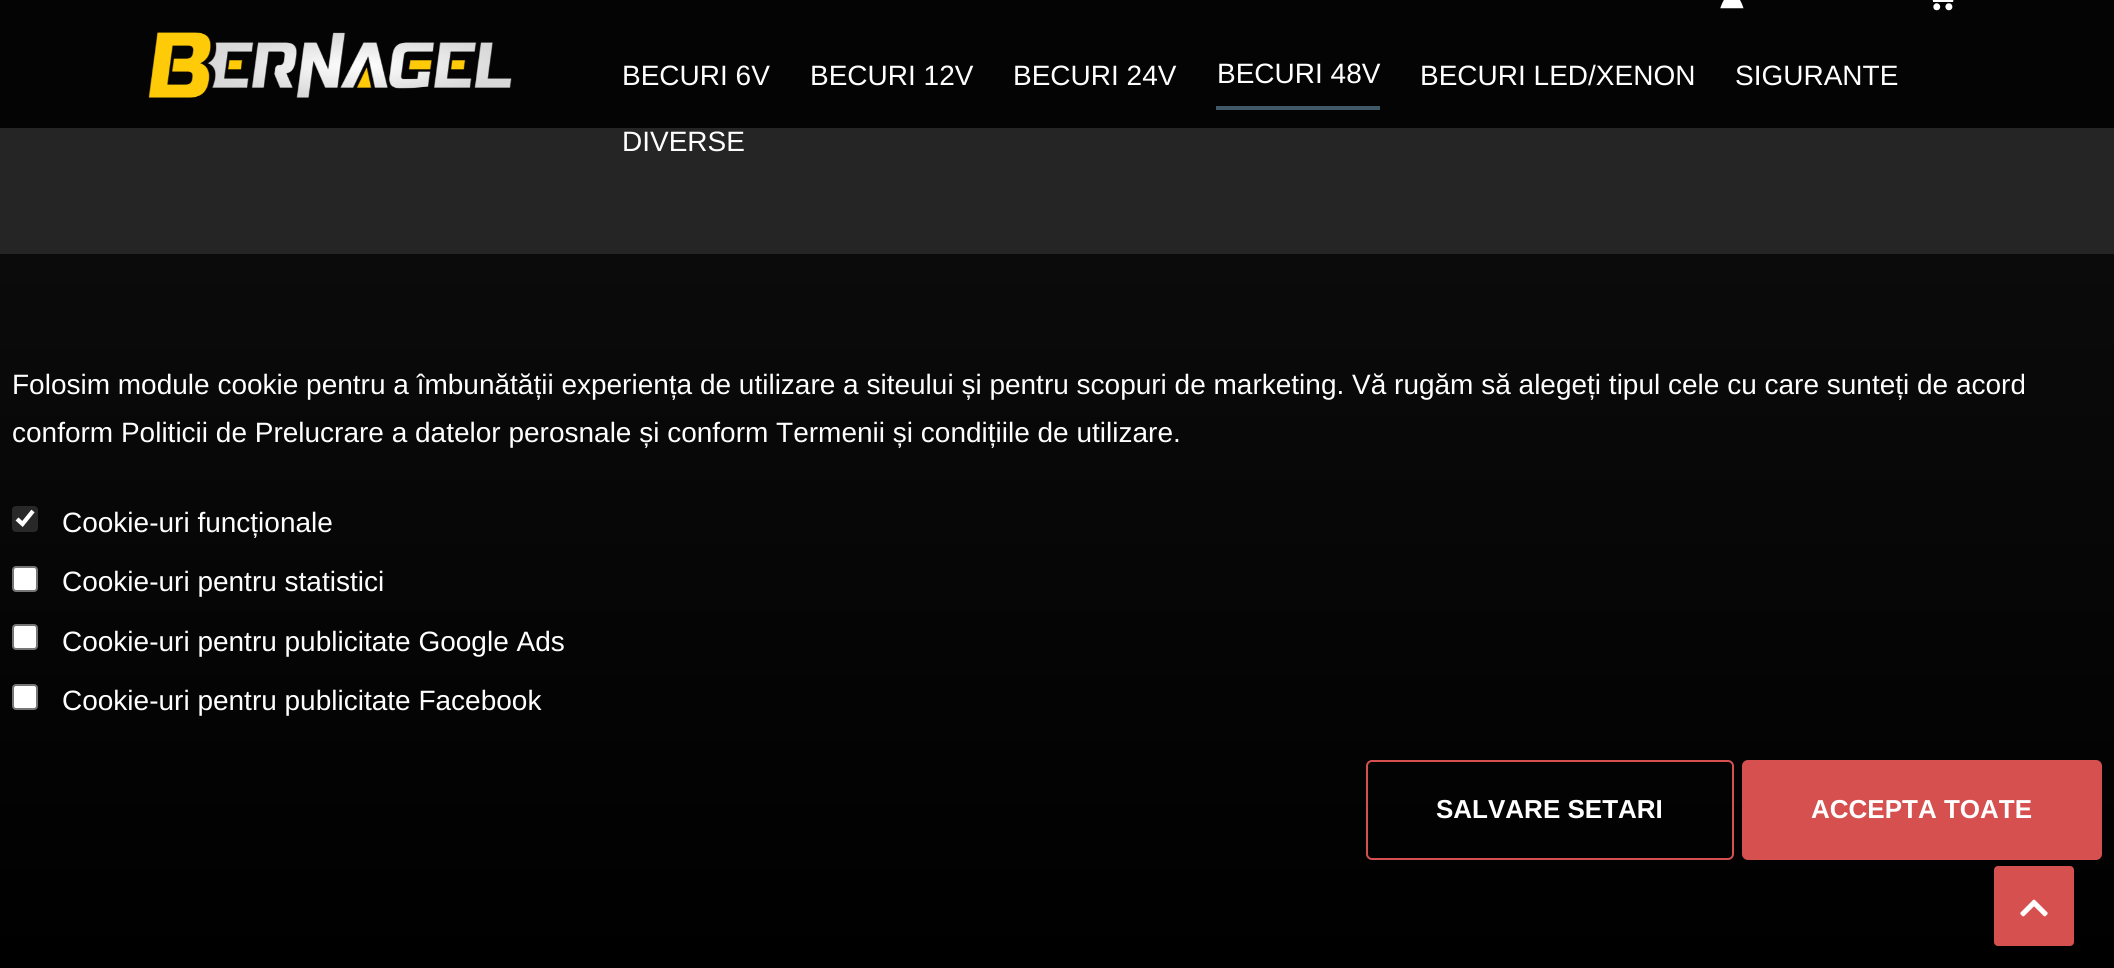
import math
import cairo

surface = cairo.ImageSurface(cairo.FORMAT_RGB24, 2114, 968)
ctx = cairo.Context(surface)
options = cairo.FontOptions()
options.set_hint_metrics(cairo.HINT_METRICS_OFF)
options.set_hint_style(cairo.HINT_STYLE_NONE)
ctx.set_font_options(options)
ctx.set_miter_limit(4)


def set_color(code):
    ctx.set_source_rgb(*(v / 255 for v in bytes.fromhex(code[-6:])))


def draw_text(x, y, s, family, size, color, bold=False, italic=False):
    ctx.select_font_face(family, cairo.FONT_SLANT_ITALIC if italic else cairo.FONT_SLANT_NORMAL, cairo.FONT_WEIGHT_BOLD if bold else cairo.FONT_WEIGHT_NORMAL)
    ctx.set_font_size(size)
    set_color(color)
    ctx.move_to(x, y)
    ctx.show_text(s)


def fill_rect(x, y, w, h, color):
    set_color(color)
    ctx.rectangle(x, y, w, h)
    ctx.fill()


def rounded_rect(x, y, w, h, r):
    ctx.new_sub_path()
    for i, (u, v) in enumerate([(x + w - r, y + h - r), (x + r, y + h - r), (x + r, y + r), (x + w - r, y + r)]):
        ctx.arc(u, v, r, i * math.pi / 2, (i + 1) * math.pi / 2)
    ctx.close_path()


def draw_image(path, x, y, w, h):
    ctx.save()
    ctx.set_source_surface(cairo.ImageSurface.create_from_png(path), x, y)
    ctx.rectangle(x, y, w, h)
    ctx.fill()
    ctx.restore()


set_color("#252525")
ctx.paint()
fill_rect(0, 0, 2114, 128, "#040404")
draw_image("assets/img1.png", 1720, 0, 24, 9)
draw_image("assets/img2.png", 1932, 0, 22, 11)
draw_image("assets/img3.png", 148, 32, 364, 66)
draw_text(622, 85, "BECURI 6V", "Liberation Sans", 28, "#ffffff")
draw_text(810, 85, "BECURI 12V", "Liberation Sans", 28, "#ffffff")
draw_text(1013, 85, "BECURI 24V", "Liberation Sans", 28, "#ffffff")
fill_rect(1216, 106, 164, 4, "#415966")
draw_text(1217, 83, "BECURI 48V", "Liberation Sans", 28, "#ffffff")
draw_text(1420, 85, "BECURI LED/XENON", "Liberation Sans", 28, "#ffffff")
draw_text(1735, 85, "SIGURANTE", "Liberation Sans", 28, "#ffffff")
draw_text(622, 151, "DIVERSE", "Liberation Sans", 28, "#ffffff")
gradient = cairo.LinearGradient(1057, 968, 1057, 254)
gradient.add_color_stop_rgba(0, 0, 0, 0, 1)
gradient.add_color_stop_rgba(1, 0.043, 0.043, 0.043, 1)
ctx.set_source(gradient)
ctx.rectangle(0, 254, 2114, 714)
ctx.fill()
draw_text(12, 394, "Folosim module cookie pentru a îmbunătății experiența de utilizare a siteului și pentru scopuri de marketing. Vă rugăm să alegeți tipul cele cu care sunteți de acord", "Liberation Sans", 28, "#ffffff")
draw_text(12, 442, "conform Politicii de Prelucrare a datelor perosnale și conform Termenii și condițiile de utilizare.", "Liberation Sans", 28, "#ffffff")
set_color("#282828")
rounded_rect(12, 506, 26, 26, 4)
ctx.fill()
ctx.new_path()
ctx.move_to(17, 519)
ctx.line_to(22.5, 524)
ctx.line_to(33, 511)
set_color("#ffffff")
ctx.set_line_width(4.2)
ctx.stroke()
draw_text(62, 532, "Cookie-uri funcționale", "Liberation Sans", 28, "#ffffff")
rounded_rect(13, 567, 24, 24, 3)
ctx.fill_preserve()
set_color("#767676")
ctx.set_line_width(2)
ctx.stroke()
draw_text(62, 591, "Cookie-uri pentru statistici", "Liberation Sans", 28, "#ffffff")
rounded_rect(13, 625, 24, 24, 3)
ctx.fill_preserve()
set_color("#767676")
ctx.stroke()
draw_text(62, 651, "Cookie-uri pentru publicitate Google Ads", "Liberation Sans", 28, "#ffffff")
rounded_rect(13, 685, 24, 24, 3)
ctx.fill_preserve()
set_color("#767676")
ctx.stroke()
draw_text(62, 710, "Cookie-uri pentru publicitate Facebook", "Liberation Sans", 28, "#ffffff")
rounded_rect(1367, 761, 366, 98, 5)
set_color("#d65050")
ctx.stroke()
draw_text(1436, 818, "SALVARE SETARI", "Liberation Sans", 26, "#ffffff", bold=True)
set_color("#d65050")
rounded_rect(1743, 761, 358, 98, 5)
ctx.fill_preserve()
ctx.stroke()
draw_text(1811, 818, "ACCEPTA TOATE", "Liberation Sans", 26, "#ffffff", bold=True)
set_color("#d65050")
rounded_rect(1994, 866, 80, 80, 4)
ctx.fill()
draw_image("assets/img4.png", 2020, 899, 28, 18)
surface.write_to_png("output.png")
